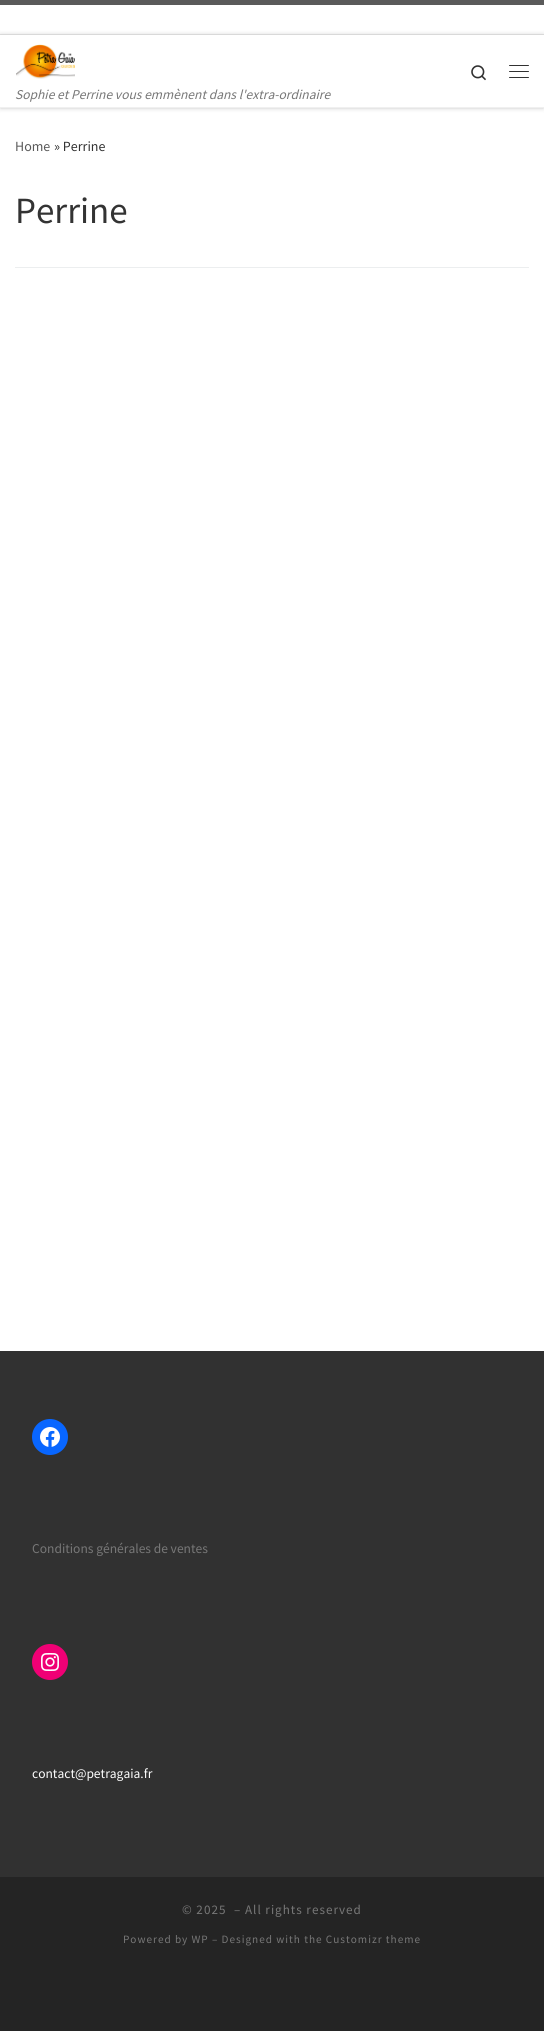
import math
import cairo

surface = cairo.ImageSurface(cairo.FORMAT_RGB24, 544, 2031)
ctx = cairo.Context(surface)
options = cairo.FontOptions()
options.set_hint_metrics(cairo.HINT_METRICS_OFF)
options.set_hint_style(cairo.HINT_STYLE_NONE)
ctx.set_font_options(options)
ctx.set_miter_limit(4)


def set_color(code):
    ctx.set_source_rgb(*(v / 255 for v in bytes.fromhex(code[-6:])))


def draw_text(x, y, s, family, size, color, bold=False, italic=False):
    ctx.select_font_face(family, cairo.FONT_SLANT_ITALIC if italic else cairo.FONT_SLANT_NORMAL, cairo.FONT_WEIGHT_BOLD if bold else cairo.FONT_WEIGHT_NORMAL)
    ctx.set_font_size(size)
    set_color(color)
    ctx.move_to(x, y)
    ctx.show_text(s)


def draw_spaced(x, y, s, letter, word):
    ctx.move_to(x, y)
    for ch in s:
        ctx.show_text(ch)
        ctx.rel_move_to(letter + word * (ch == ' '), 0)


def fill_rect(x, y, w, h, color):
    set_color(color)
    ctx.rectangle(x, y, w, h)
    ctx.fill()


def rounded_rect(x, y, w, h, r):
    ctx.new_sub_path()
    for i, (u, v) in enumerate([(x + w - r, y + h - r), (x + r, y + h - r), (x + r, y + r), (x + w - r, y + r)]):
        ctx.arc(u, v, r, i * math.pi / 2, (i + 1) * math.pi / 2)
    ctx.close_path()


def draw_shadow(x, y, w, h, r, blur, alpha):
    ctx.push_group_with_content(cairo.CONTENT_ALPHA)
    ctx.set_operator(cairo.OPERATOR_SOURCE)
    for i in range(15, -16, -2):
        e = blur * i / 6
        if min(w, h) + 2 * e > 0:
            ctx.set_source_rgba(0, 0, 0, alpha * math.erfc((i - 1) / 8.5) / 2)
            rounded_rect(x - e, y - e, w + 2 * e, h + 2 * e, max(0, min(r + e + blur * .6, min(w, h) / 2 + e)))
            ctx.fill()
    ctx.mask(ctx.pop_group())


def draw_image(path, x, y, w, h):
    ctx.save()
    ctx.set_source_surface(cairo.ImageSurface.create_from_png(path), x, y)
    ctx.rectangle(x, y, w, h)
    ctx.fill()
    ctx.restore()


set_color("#ffffff")
ctx.paint()
ctx.save()
ctx.rectangle(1, 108, 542, 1)
ctx.clip()
set_color("#666666")
draw_shadow(0, 2, 544, 106, 0, 1, 0.08)
ctx.restore()
fill_rect(0, 0, 544, 5, "#5a5a5a")
fill_rect(0, 34, 544, 1, "#ececec")
set_color("#000000")
draw_shadow(0, 35, 544, 73, 0, 2.5, 0.2)
fill_rect(0, 35, 544, 72, "#ffffff")
draw_image("assets/img1.png", 471, 65, 15, 16)
set_color("#313131")
rounded_rect(509, 65, 20, 1, 0.5)
ctx.fill()
rounded_rect(509, 71, 20, 1, 0.5)
ctx.fill()
rounded_rect(509, 77, 20, 1, 0.5)
ctx.fill()
draw_image("assets/img2.png", 16, 44, 59, 35)
draw_text(15, 99, "Sophie et Perrine vous emmènent dans l'extra-ordinaire", "Source Sans Pro", 13.5, "#777777", italic=True)
fill_rect(0, 107, 544, 1, "#f0f0f0")
draw_text(15, 151, "Home", "Source Sans Pro", 14, "#5a5a5a")
draw_text(54, 151, "» Perrine", "Source Sans Pro", 14, "#333333")
draw_text(15, 223, "Perrine", "Source Sans Pro", 37, "#333333")
fill_rect(15, 267, 514, 1, "#eceeef")
fill_rect(0, 1351, 544, 526, "#313131")
set_color("#0866ff")
ctx.new_path()
ctx.arc(50, 1437, 18, 0, 2 * math.pi)
ctx.fill()
draw_image("assets/img3.png", 40, 1427, 20, 20)
draw_text(32, 1553, "Conditions générales de ventes", "Source Sans Pro", 13.5, "#777777")
set_color("#f00075")
ctx.new_path()
ctx.arc(50, 1662, 18, 0, 2 * math.pi)
ctx.fill()
draw_image("assets/img4.png", 41, 1653, 18, 18)
draw_text(32, 1778, "contact@petragaia.fr", "Source Sans Pro", 13.5, "#ffffff")
fill_rect(0, 1877, 544, 154, "#242424")
ctx.set_font_size(13.1)
set_color("#777777")
draw_spaced(182, 1914, "© 2025", 1, 0)
draw_spaced(234, 1914, "– All rights reserved", 1, 0)
ctx.set_font_size(11.2)
draw_spaced(123, 1943, "Powered by WP – Designed with the Customizr theme", 1, 0)
surface.write_to_png("output.png")
